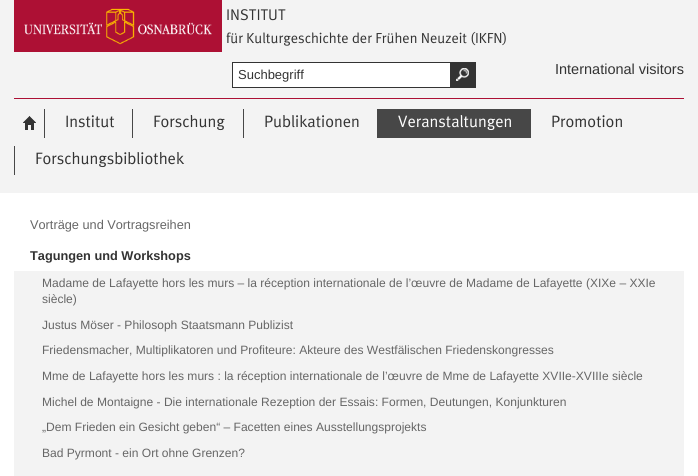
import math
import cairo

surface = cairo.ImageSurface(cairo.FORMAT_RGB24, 698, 476)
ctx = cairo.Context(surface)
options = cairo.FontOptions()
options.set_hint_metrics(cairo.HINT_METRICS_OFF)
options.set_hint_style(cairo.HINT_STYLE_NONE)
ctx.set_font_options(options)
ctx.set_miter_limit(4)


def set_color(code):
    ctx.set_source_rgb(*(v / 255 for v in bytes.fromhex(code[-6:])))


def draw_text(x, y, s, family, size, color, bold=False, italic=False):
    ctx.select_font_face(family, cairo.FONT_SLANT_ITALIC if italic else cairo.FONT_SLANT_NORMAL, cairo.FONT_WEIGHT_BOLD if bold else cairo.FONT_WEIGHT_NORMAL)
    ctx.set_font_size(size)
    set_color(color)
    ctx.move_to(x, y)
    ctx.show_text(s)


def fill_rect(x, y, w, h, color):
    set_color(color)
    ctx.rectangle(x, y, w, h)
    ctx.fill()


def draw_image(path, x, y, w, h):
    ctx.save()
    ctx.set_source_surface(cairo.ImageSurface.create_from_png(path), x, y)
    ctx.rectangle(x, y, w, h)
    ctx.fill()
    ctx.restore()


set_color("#ffffff")
ctx.paint()
fill_rect(0, 0, 698, 193, "#f3f3f3")
fill_rect(14, 98, 670, 1, "#ac1035")
draw_image("assets/img1.png", 14, 0, 208, 52)
draw_text(226, 20, "INSTITUT", "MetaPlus", 15.5, "#333333")
draw_text(226, 43, "für Kulturgeschichte der Frühen Neuzeit (IKFN)", "MetaPlus", 14.5, "#333333")
fill_rect(233, 63, 217, 24, "#ffffff")
ctx.rectangle(232.5, 62.5, 221, 25)
set_color("#333333")
ctx.set_line_width(1)
ctx.stroke()
draw_text(238, 79, "Suchbegriff", "Liberation Sans", 13, "#333333")
ctx.rectangle(450.5, 62.5, 25, 25)
ctx.stroke()
fill_rect(451, 63, 24, 24, "#333333")
draw_image("assets/img2.png", 456, 68, 13, 13)
draw_text(555, 74, "International visitors", "Liberation Sans", 14.5, "#333333")
draw_image("assets/img3.png", 23, 116, 13, 14)
fill_rect(44, 109, 1, 29, "#474747")
draw_text(65, 127, "Institut", "MetaPlus", 16.5, "#333333")
fill_rect(132, 109, 1, 29, "#474747")
draw_text(153, 127, "Forschung", "MetaPlus", 16.5, "#333333")
fill_rect(243, 109, 1, 29, "#474747")
draw_text(264, 127, "Publikationen", "MetaPlus", 16.5, "#333333")
fill_rect(377, 109, 1, 29, "#474747")
fill_rect(378, 113, 152, 21, "#474747")
fill_rect(377, 109, 154, 4, "#474747")
fill_rect(530, 109, 1, 29, "#474747")
fill_rect(377, 134, 154, 4, "#474747")
draw_text(398, 127, "Veranstaltungen", "MetaPlus", 16.5, "#ffffff")
draw_text(551, 127, "Promotion", "MetaPlus", 16.5, "#333333")
fill_rect(14, 146, 1, 29, "#474747")
draw_text(35, 164, "Forschungsbibliothek", "MetaPlus", 16.5, "#333333")
draw_text(30, 229, "Vorträge und Vortragsreihen", "Liberation Sans", 12.75, "#666666")
draw_text(30, 260, "Tagungen und Workshops", "Liberation Sans", 12.75, "#333333", bold=True)
fill_rect(14, 271, 670, 205, "#f3f3f3")
draw_text(42, 287, "Madame de Lafayette hors les murs – la réception internationale de l’œuvre de Madame de Lafayette (XIXe ‒ XXIe", "Liberation Sans", 12.05, "#666666")
draw_text(42, 303, "siècle)", "Liberation Sans", 12.05, "#666666")
draw_text(42, 329, "Justus Möser - Philosoph Staatsmann Publizist", "Liberation Sans", 12.05, "#666666")
draw_text(42, 354, "Friedensmacher, Multiplikatoren und Profiteure: Akteure des Westfälischen Friedenskongresses", "Liberation Sans", 12.05, "#666666")
draw_text(42, 380, "Mme de Lafayette hors les murs : la réception internationale de l’œuvre de Mme de Lafayette XVIIe-XVIIIe siècle", "Liberation Sans", 12.05, "#666666")
draw_text(42, 406, "Michel de Montaigne - Die internationale Rezeption der Essais: Formen, Deutungen, Konjunkturen", "Liberation Sans", 12.05, "#666666")
draw_text(42, 431, "„Dem Frieden ein Gesicht geben“ – Facetten eines Ausstellungsprojekts", "Liberation Sans", 12.05, "#666666")
draw_text(42, 457, "Bad Pyrmont - ein Ort ohne Grenzen?", "Liberation Sans", 12.05, "#666666")
surface.write_to_png("output.png")
